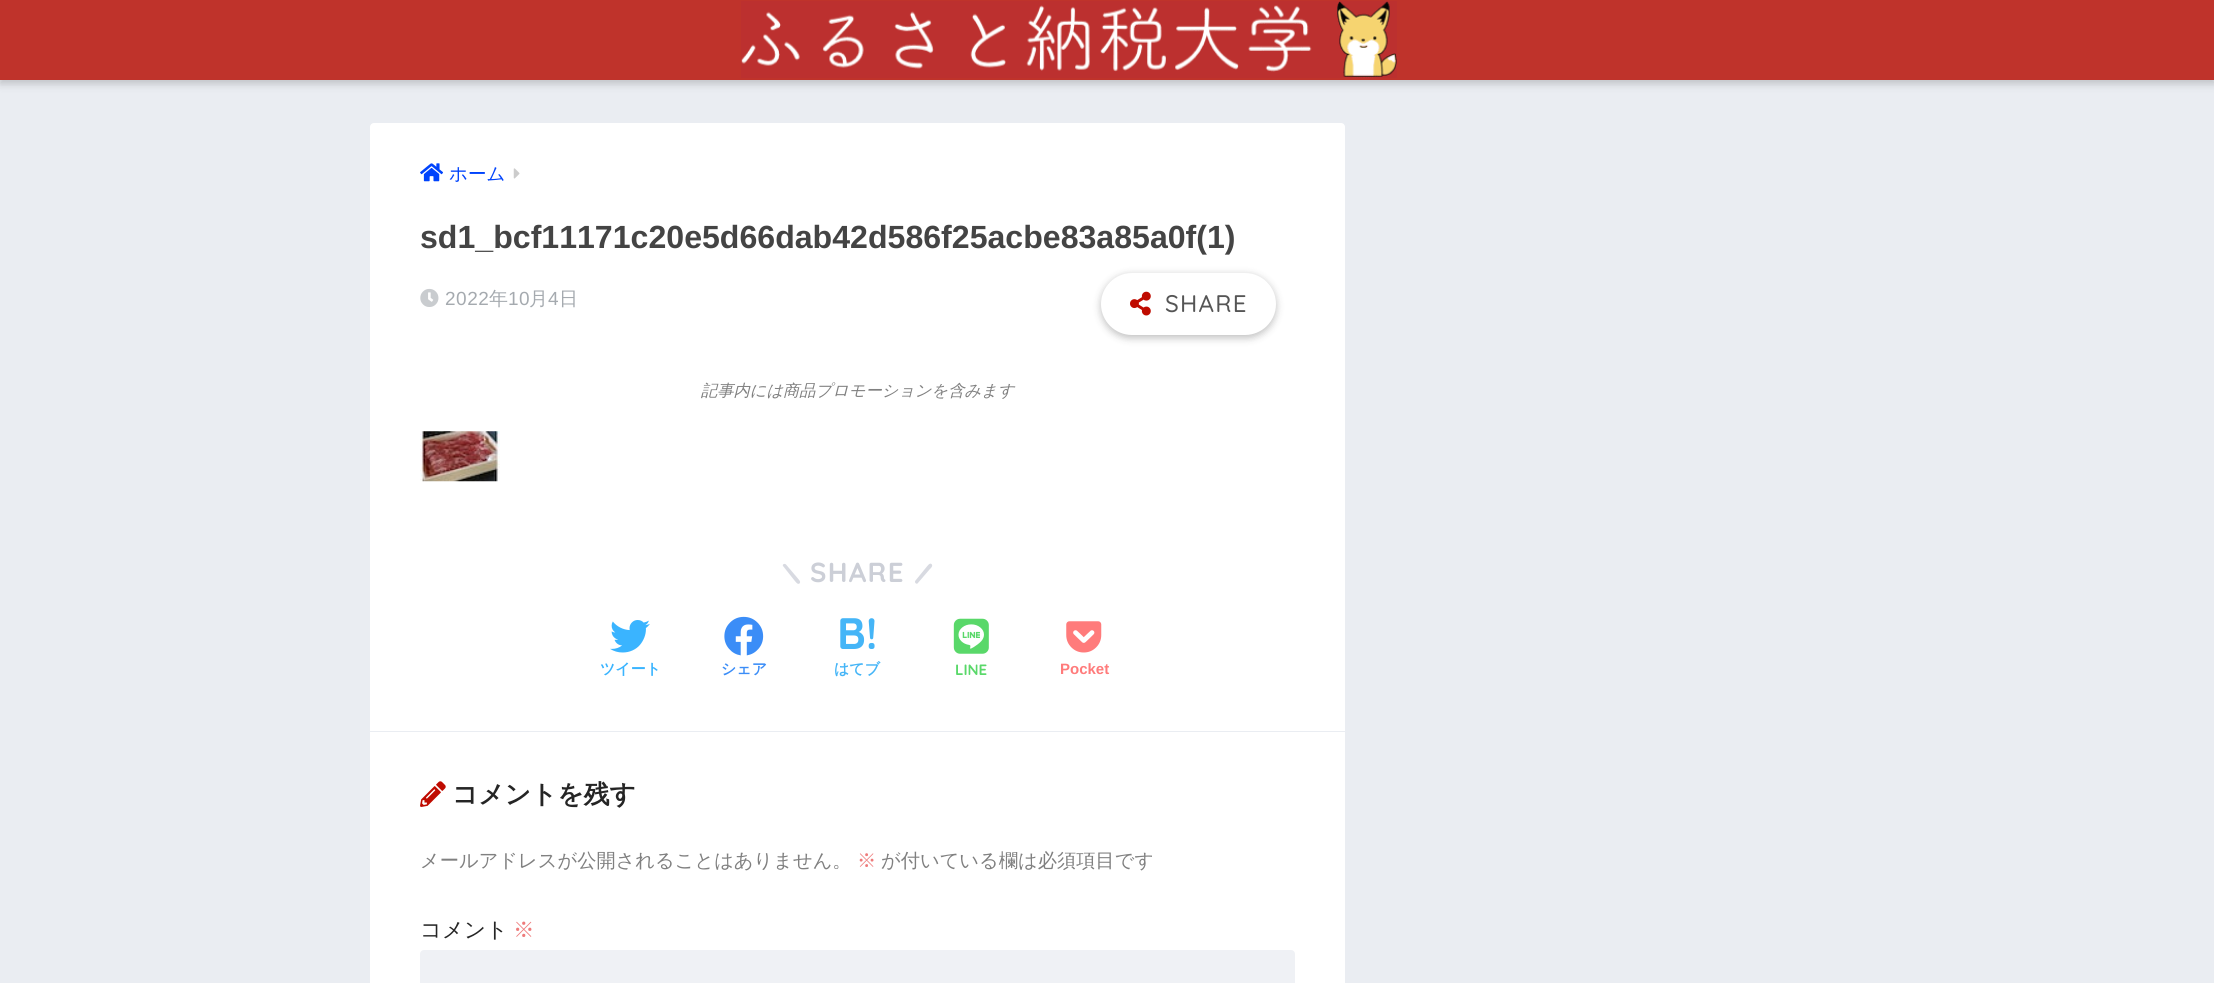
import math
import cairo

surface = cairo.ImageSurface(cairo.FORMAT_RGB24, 2214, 983)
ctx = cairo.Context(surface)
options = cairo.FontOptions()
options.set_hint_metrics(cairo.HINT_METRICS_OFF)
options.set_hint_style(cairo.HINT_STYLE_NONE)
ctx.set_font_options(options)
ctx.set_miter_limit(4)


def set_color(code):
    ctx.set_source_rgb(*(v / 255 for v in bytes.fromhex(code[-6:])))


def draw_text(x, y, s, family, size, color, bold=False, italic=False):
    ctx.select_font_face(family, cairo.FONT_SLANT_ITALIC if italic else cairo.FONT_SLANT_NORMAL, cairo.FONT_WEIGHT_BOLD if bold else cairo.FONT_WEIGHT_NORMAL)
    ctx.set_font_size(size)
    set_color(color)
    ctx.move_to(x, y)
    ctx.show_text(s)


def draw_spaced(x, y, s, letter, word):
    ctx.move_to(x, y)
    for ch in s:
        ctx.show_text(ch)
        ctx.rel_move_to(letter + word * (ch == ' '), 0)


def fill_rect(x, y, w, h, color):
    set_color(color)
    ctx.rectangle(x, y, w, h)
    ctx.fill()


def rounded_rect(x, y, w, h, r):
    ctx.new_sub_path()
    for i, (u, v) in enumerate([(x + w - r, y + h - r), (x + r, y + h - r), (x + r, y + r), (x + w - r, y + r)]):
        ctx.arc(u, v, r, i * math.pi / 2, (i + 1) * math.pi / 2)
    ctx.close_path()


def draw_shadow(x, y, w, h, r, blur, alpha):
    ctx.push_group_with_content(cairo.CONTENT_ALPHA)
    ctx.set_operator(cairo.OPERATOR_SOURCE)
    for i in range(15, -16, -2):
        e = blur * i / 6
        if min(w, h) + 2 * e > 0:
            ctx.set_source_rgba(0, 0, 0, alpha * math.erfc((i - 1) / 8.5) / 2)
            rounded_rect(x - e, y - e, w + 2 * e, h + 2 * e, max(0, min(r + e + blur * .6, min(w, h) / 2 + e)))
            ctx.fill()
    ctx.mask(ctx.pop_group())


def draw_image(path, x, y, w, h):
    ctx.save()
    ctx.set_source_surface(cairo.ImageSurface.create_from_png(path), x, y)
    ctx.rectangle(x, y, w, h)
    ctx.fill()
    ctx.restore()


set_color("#eaedf2")
ctx.paint()
set_color("#000000")
draw_shadow(0, 4, 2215, 80, 0, 4, 0.18)
fill_rect(0, 0, 2214, 80, "#bf332b")
draw_image("assets/img1.png", 741, 1, 656, 77)
set_color("#ffffff")
rounded_rect(370, 123, 975, 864, 4)
ctx.fill()
draw_image("assets/img2.png", 420, 163, 23, 19)
draw_text(449, 180, "ホーム", "WenQuanYi Zen Hei Medium", 18.5, "#0043fc")
draw_image("assets/img3.png", 513, 168, 7, 11)
draw_text(420, 248, "sd1_bcf11171c20e5d66dab42d586f25acbe83a85a0f(1)", "Liberation Sans", 32.1, "#444444", bold=True)
draw_image("assets/img4.png", 420, 288, 19, 19)
ctx.select_font_face("Liberation Sans")
ctx.set_font_size(19)
set_color("#a5aaaf")
draw_spaced(445, 305, "2022", 0.5, 0)
ctx.select_font_face("WenQuanYi Zen Hei Medium")
draw_spaced(489, 305, "年", 0.5, 0)
ctx.select_font_face("Liberation Sans")
draw_spaced(508, 305, "10", 0.5, 0)
ctx.select_font_face("WenQuanYi Zen Hei Medium")
draw_spaced(529, 305, "月", 0.5, 0)
ctx.select_font_face("Liberation Sans")
draw_spaced(548, 305, "4", 0.5, 0)
ctx.select_font_face("WenQuanYi Zen Hei Medium")
draw_spaced(559, 305, "日", 0.5, 0)
set_color("#000000")
draw_shadow(1101, 275, 175, 63, 31.5, 4, 0.25)
set_color("#ffffff")
rounded_rect(1101, 273, 175, 62, 31)
ctx.fill()
draw_image("assets/img5.png", 1130, 291, 21, 25)
ctx.select_font_face("Quicksand Medium")
ctx.set_font_size(24)
set_color("#555555")
draw_spaced(1165, 312, "SHARE", 1.25, 0)
draw_text(701, 396, "記事内には商品プロモーションを含みます", "WenQuanYi Zen Hei Medium", 16.25, "#808080", italic=True)
draw_image("assets/img6.png", 420, 431, 80, 51)
set_color("#d8dae1")
ctx.new_path()
ctx.move_to(786, 564.5)
ctx.line_to(797.5, 578)
ctx.curve_to(798, 579, 801.5, 581.5, 799.5, 583.5)
ctx.curve_to(797.5, 585, 795.5, 581.5, 794.5, 580.5)
ctx.line_to(783, 566)
ctx.curve_to(782, 564.5, 784.5, 563, 786, 564.5)
ctx.close_path()
ctx.fill()
ctx.select_font_face("Quicksand", cairo.FONT_SLANT_NORMAL, cairo.FONT_WEIGHT_BOLD)
ctx.set_font_size(27.5)
set_color("#cccfd7")
draw_spaced(810, 582, "SHARE", 1.25, 0)
set_color("#d8dae1")
ctx.new_path()
ctx.move_to(915.5, 580.5)
ctx.line_to(926.5, 567)
ctx.curve_to(927.5, 566, 929.5, 562.5, 931.5, 564)
ctx.curve_to(933.5, 566, 930.5, 568.5, 929.5, 569.5)
ctx.line_to(917.5, 583.5)
ctx.curve_to(916, 584.5, 914, 582, 915.5, 580.5)
ctx.close_path()
ctx.fill()
draw_image("assets/img7.png", 610, 620, 40, 33)
draw_text(600, 674, "ツイート", "WenQuanYi Zen Hei", 15, "#3ab4ff", bold=True)
draw_image("assets/img8.png", 724, 616, 40, 40)
draw_text(721, 674, "シェア", "WenQuanYi Zen Hei", 15, "#3b8df7", bold=True)
draw_text(837, 649, "B!", "Quicksand", 44, "#45b5f7", bold=True)
draw_text(834, 674, "はてブ", "WenQuanYi Zen Hei", 15, "#45b5f7", bold=True)
draw_image("assets/img9.png", 953, 618, 36, 36)
draw_text(955, 675, "LINE", "Quicksand", 15, "#59d869", bold=True)
draw_image("assets/img10.png", 1066, 621, 36, 32)
draw_text(1060, 674, "Pocket", "Liberation Sans", 15, "#ff7b7b", bold=True)
fill_rect(370, 731, 975, 1, "#eaedf2")
draw_image("assets/img11.png", 420, 781, 26, 26)
draw_text(452, 803, "コメントを残す", "WenQuanYi Zen Hei", 25.75, "#252525", bold=True)
draw_text(420, 867, "メールアドレスが公開されることはありません。", "WenQuanYi Zen Hei Medium", 19.25, "#808080")
draw_text(857, 867, "※", "WenQuanYi Zen Hei Medium", 19.25, "#ee7b7b")
draw_text(881, 867, "が付いている欄は必須項目です", "WenQuanYi Zen Hei Medium", 19.25, "#808080")
draw_text(420, 937, "コメント", "WenQuanYi Zen Hei Medium", 21.5, "#252525")
draw_text(513, 937, "※", "WenQuanYi Zen Hei Medium", 21.5, "#ee7b7b")
set_color("#eff1f5")
rounded_rect(420, 950, 875, 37, 4)
ctx.fill()
surface.write_to_png("output.png")
